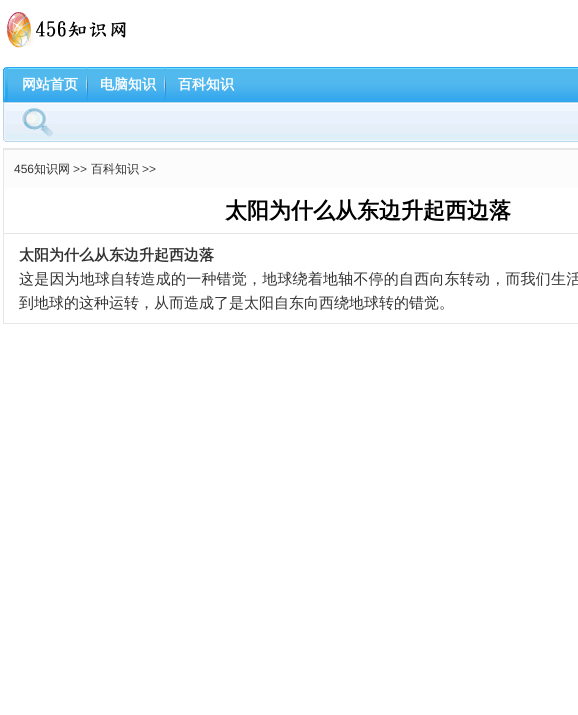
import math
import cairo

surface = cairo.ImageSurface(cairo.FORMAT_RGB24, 578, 715)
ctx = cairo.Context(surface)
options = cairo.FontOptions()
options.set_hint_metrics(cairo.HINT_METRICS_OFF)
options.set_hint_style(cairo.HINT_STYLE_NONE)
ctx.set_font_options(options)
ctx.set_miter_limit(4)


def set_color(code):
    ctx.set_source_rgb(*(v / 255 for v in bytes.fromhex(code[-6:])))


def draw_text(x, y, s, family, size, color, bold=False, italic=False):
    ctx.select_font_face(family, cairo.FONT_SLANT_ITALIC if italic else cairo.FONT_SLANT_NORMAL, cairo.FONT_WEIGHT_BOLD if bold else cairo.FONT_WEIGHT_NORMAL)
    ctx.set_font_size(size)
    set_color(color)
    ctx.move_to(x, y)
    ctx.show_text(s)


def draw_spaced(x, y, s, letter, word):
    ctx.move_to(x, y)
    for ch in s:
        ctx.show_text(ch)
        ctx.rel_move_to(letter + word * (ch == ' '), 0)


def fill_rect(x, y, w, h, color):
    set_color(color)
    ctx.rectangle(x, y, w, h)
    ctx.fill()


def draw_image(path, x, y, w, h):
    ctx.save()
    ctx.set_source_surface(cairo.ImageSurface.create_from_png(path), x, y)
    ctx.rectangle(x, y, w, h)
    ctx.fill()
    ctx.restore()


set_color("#ffffff")
ctx.paint()
draw_image("assets/img1.png", 6, 12, 120, 36)
draw_image("assets/img2.png", 3, 67, 5, 35)
draw_image("assets/img3.png", 8, 67, 570, 35)
draw_text(22, 89, "网站首页", "WenQuanYi Zen Hei", 14, "#ffffff", bold=True)
draw_image("assets/img4.png", 86, 67, 2, 35)
draw_text(100, 89, "电脑知识", "WenQuanYi Zen Hei", 14, "#ffffff", bold=True)
draw_image("assets/img4.png", 164, 67, 2, 35)
draw_text(178, 89, "百科知识", "WenQuanYi Zen Hei", 14, "#ffffff", bold=True)
draw_image("assets/img5.png", 3, 102, 575, 40)
ctx.rectangle(3.5, 148.5, 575, 175)
set_color("#e7e7e7")
ctx.set_line_width(1)
ctx.stroke()
fill_rect(4, 150, 574, 38, "#fcfcfc")
fill_rect(4, 149, 574, 1, "#e7e7e7")
draw_text(14, 173, "456", "Liberation Sans", 12, "#333333")
draw_text(34, 173, "知识网", "WenQuanYi Zen Hei Medium", 12, "#333333")
draw_text(73, 173, ">>", "Liberation Sans", 12, "#444444")
draw_text(91, 173, "百科知识", "WenQuanYi Zen Hei Medium", 12, "#333333")
draw_text(142, 173, ">>", "Liberation Sans", 12, "#444444")
draw_text(225, 218, "太阳为什么从东边升起西边落", "WenQuanYi Zen Hei", 22, "#000000", bold=True)
fill_rect(4, 233, 574, 1, "#e5e5e5")
draw_text(19, 260, "太阳为什么从东边升起西边落", "WenQuanYi Zen Hei", 15, "#333333", bold=True)
ctx.select_font_face("WenQuanYi Zen Hei Medium")
draw_spaced(19, 284, "这是因为地球自转造成的一种错觉，地球绕着地轴不停的自西向东转动，而我们生活", 0.2, 0)
draw_text(19, 308, "到地球的这种运转，从而造成了是太阳自东向西绕地球转的错觉。", "WenQuanYi Zen Hei Medium", 15, "#333333")
surface.write_to_png("output.png")
